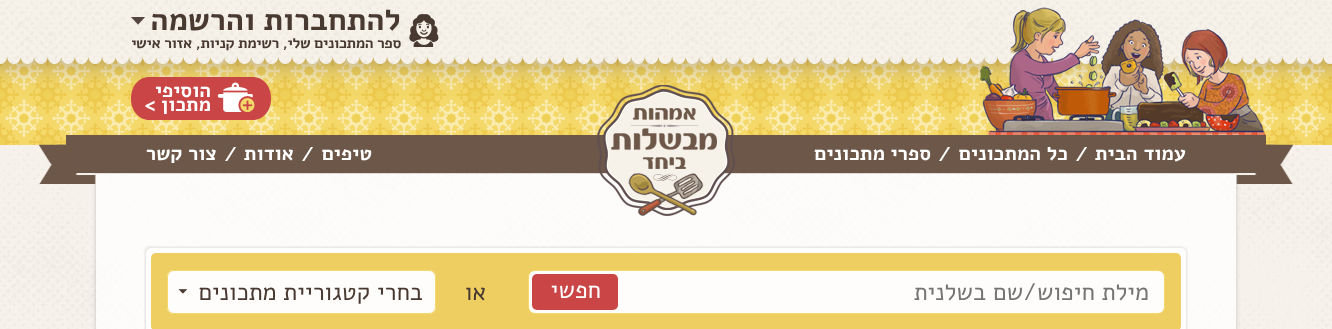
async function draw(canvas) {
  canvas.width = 1332
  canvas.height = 329
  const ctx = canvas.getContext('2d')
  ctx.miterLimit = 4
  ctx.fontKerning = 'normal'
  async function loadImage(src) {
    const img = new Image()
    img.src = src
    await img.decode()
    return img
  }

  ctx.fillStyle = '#fff'
  ctx.fillRect(0, 0, 1332, 329)
  ctx.drawImage(await loadImage('image0.png'), 0, 145, 1332, 184)
  ctx.drawImage(await loadImage('image1.png'), 0, 0, 1332, 145)
  ctx.drawImage(await loadImage('image2.png'), 980, 7, 286, 128)
  ctx.drawImage(await loadImage('image3.png'), 409, 14, 30, 33)
  ctx.drawImage(await loadImage('image4.png'), 131, 17, 14, 8)
  ctx.direction = 'rtl'
  ctx.font = 'bold 31px Alef'
  ctx.fillStyle = '#493a31'
  ctx.fillText('להתחברות והרשמה', 401, 30)
  ctx.letterSpacing = '-0.35px'
  ctx.font = 'bold 15px Alef'
  ctx.fillText('ספר המתכונים שלי, רשימת קניות, אזור אישי', 401, 48)
  ctx.fillStyle = '#ca4646'
  ctx.beginPath()
  ctx.moveTo(149, 77)
  ctx.lineTo(253, 77)
  ctx.bezierCurveTo(263, 77, 271, 86, 271, 98)
  ctx.lineTo(271, 99)
  ctx.bezierCurveTo(271, 111, 263, 120, 253, 120)
  ctx.lineTo(149, 120)
  ctx.bezierCurveTo(139, 120, 131, 111, 131, 99)
  ctx.lineTo(131, 98)
  ctx.bezierCurveTo(131, 86, 139, 77, 149, 77)
  ctx.closePath()
  ctx.fill()
  ctx.drawImage(await loadImage('image5.png'), 217, 82, 38, 30)
  ctx.letterSpacing = '0px'
  ctx.font = 'bold 20px Alef'
  ctx.fillStyle = '#fff'
  ctx.fillText('הוסיפי', 211, 97)
  ctx.fillText('מתכון >', 211, 111)
  ctx.save()
  ctx.beginPath()
  ctx.moveTo(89, 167)
  ctx.lineTo(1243, 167)
  ctx.lineTo(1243, 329)
  ctx.lineTo(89, 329)
  ctx.closePath()
  ctx.moveTo(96, 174)
  ctx.lineTo(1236, 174)
  ctx.lineTo(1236, 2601)
  ctx.lineTo(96, 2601)
  ctx.closePath()
  ctx.clip('evenodd')
  ctx.fillStyle = '#00000033'
  ctx.filter = 'blur(2px)'
  ctx.beginPath()
  ctx.rect(96, 174, 1140, 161)
  ctx.fill()
  ctx.filter = 'none'
  ctx.restore()
  ctx.fillStyle = '#6d5749'
  ctx.fillRect(66, 135, 1200, 38)
  ctx.drawImage(await loadImage('image6.png'), 1236, 144, 57, 40)
  ctx.fillStyle = '#ffffffbf'
  ctx.fillRect(96, 174, 1140, 155)
  ctx.drawImage(await loadImage('image7.png'), 597, 85, 138, 131)
  ctx.drawImage(await loadImage('image8.png'), 39, 144, 57, 40)
  ctx.fillStyle = '#fff'
  ctx.fillText('עמוד הבית', 1186, 160)
  ctx.direction = 'ltr'
  ctx.fillText('/', 1075, 161)
  ctx.direction = 'rtl'
  ctx.fillText('כל המתכונים', 1068, 160)
  ctx.direction = 'ltr'
  ctx.fillText('/', 938, 161)
  ctx.direction = 'rtl'
  ctx.fillText('ספרי מתכונים', 931, 160)
  ctx.fillText('טיפים', 372, 160)
  ctx.direction = 'ltr'
  ctx.fillText('/', 301, 161)
  ctx.direction = 'rtl'
  ctx.fillText('אודות', 294, 160)
  ctx.direction = 'ltr'
  ctx.fillText('/', 224, 161)
  ctx.direction = 'rtl'
  ctx.fillText('צור קשר', 217, 160)
  ctx.drawImage(await loadImage('image9.png'), 1181, 246, 7, 7)
  ctx.drawImage(await loadImage('image10.png'), 151, 246, 1030, 7)
  ctx.drawImage(await loadImage('image11.png'), 143, 245, 8, 8)
  ctx.drawImage(await loadImage('image12.png'), 1181, 253, 7, 76)
  ctx.drawImage(await loadImage('image13.png'), 144, 253, 7, 76)
  ctx.fillStyle = '#eece61'
  ctx.beginPath()
  ctx.roundRect(151, 253, 1030, 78, 5)
  ctx.fill()
  ctx.fillStyle = '#fefdfc'
  ctx.beginPath()
  ctx.roundRect(528.5, 270.5, 636, 43, 6.5)
  ctx.fill()
  ctx.strokeStyle = '#f4d869'
  ctx.stroke()
  ctx.font = '24px Alef'
  ctx.fillStyle = '#757575'
  ctx.fillText('מילת חיפוש/שם בשלנית', 1149, 300)
  ctx.fillStyle = '#ca4646'
  ctx.beginPath()
  ctx.roundRect(532, 274, 86, 36, 5)
  ctx.fill()
  ctx.fillStyle = '#fff'
  ctx.fillText('חפשי', 601, 298)
  ctx.fillStyle = '#493a31'
  ctx.fillText('או', 486, 300)
  ctx.fillStyle = '#fefdfc'
  ctx.beginPath()
  ctx.roundRect(167, 270, 269, 44, 7)
  ctx.fill()
  ctx.drawImage(await loadImage('image14.png'), 178, 289, 10, 5)
  ctx.beginPath()
  ctx.roundRect(167.5, 270.5, 268, 43, 6.5)
  ctx.stroke()
  ctx.fillStyle = '#493a31'
  ctx.fillText('בחרי קטגוריית מתכונים', 423, 300)
}

draw(document.querySelector('canvas'))
